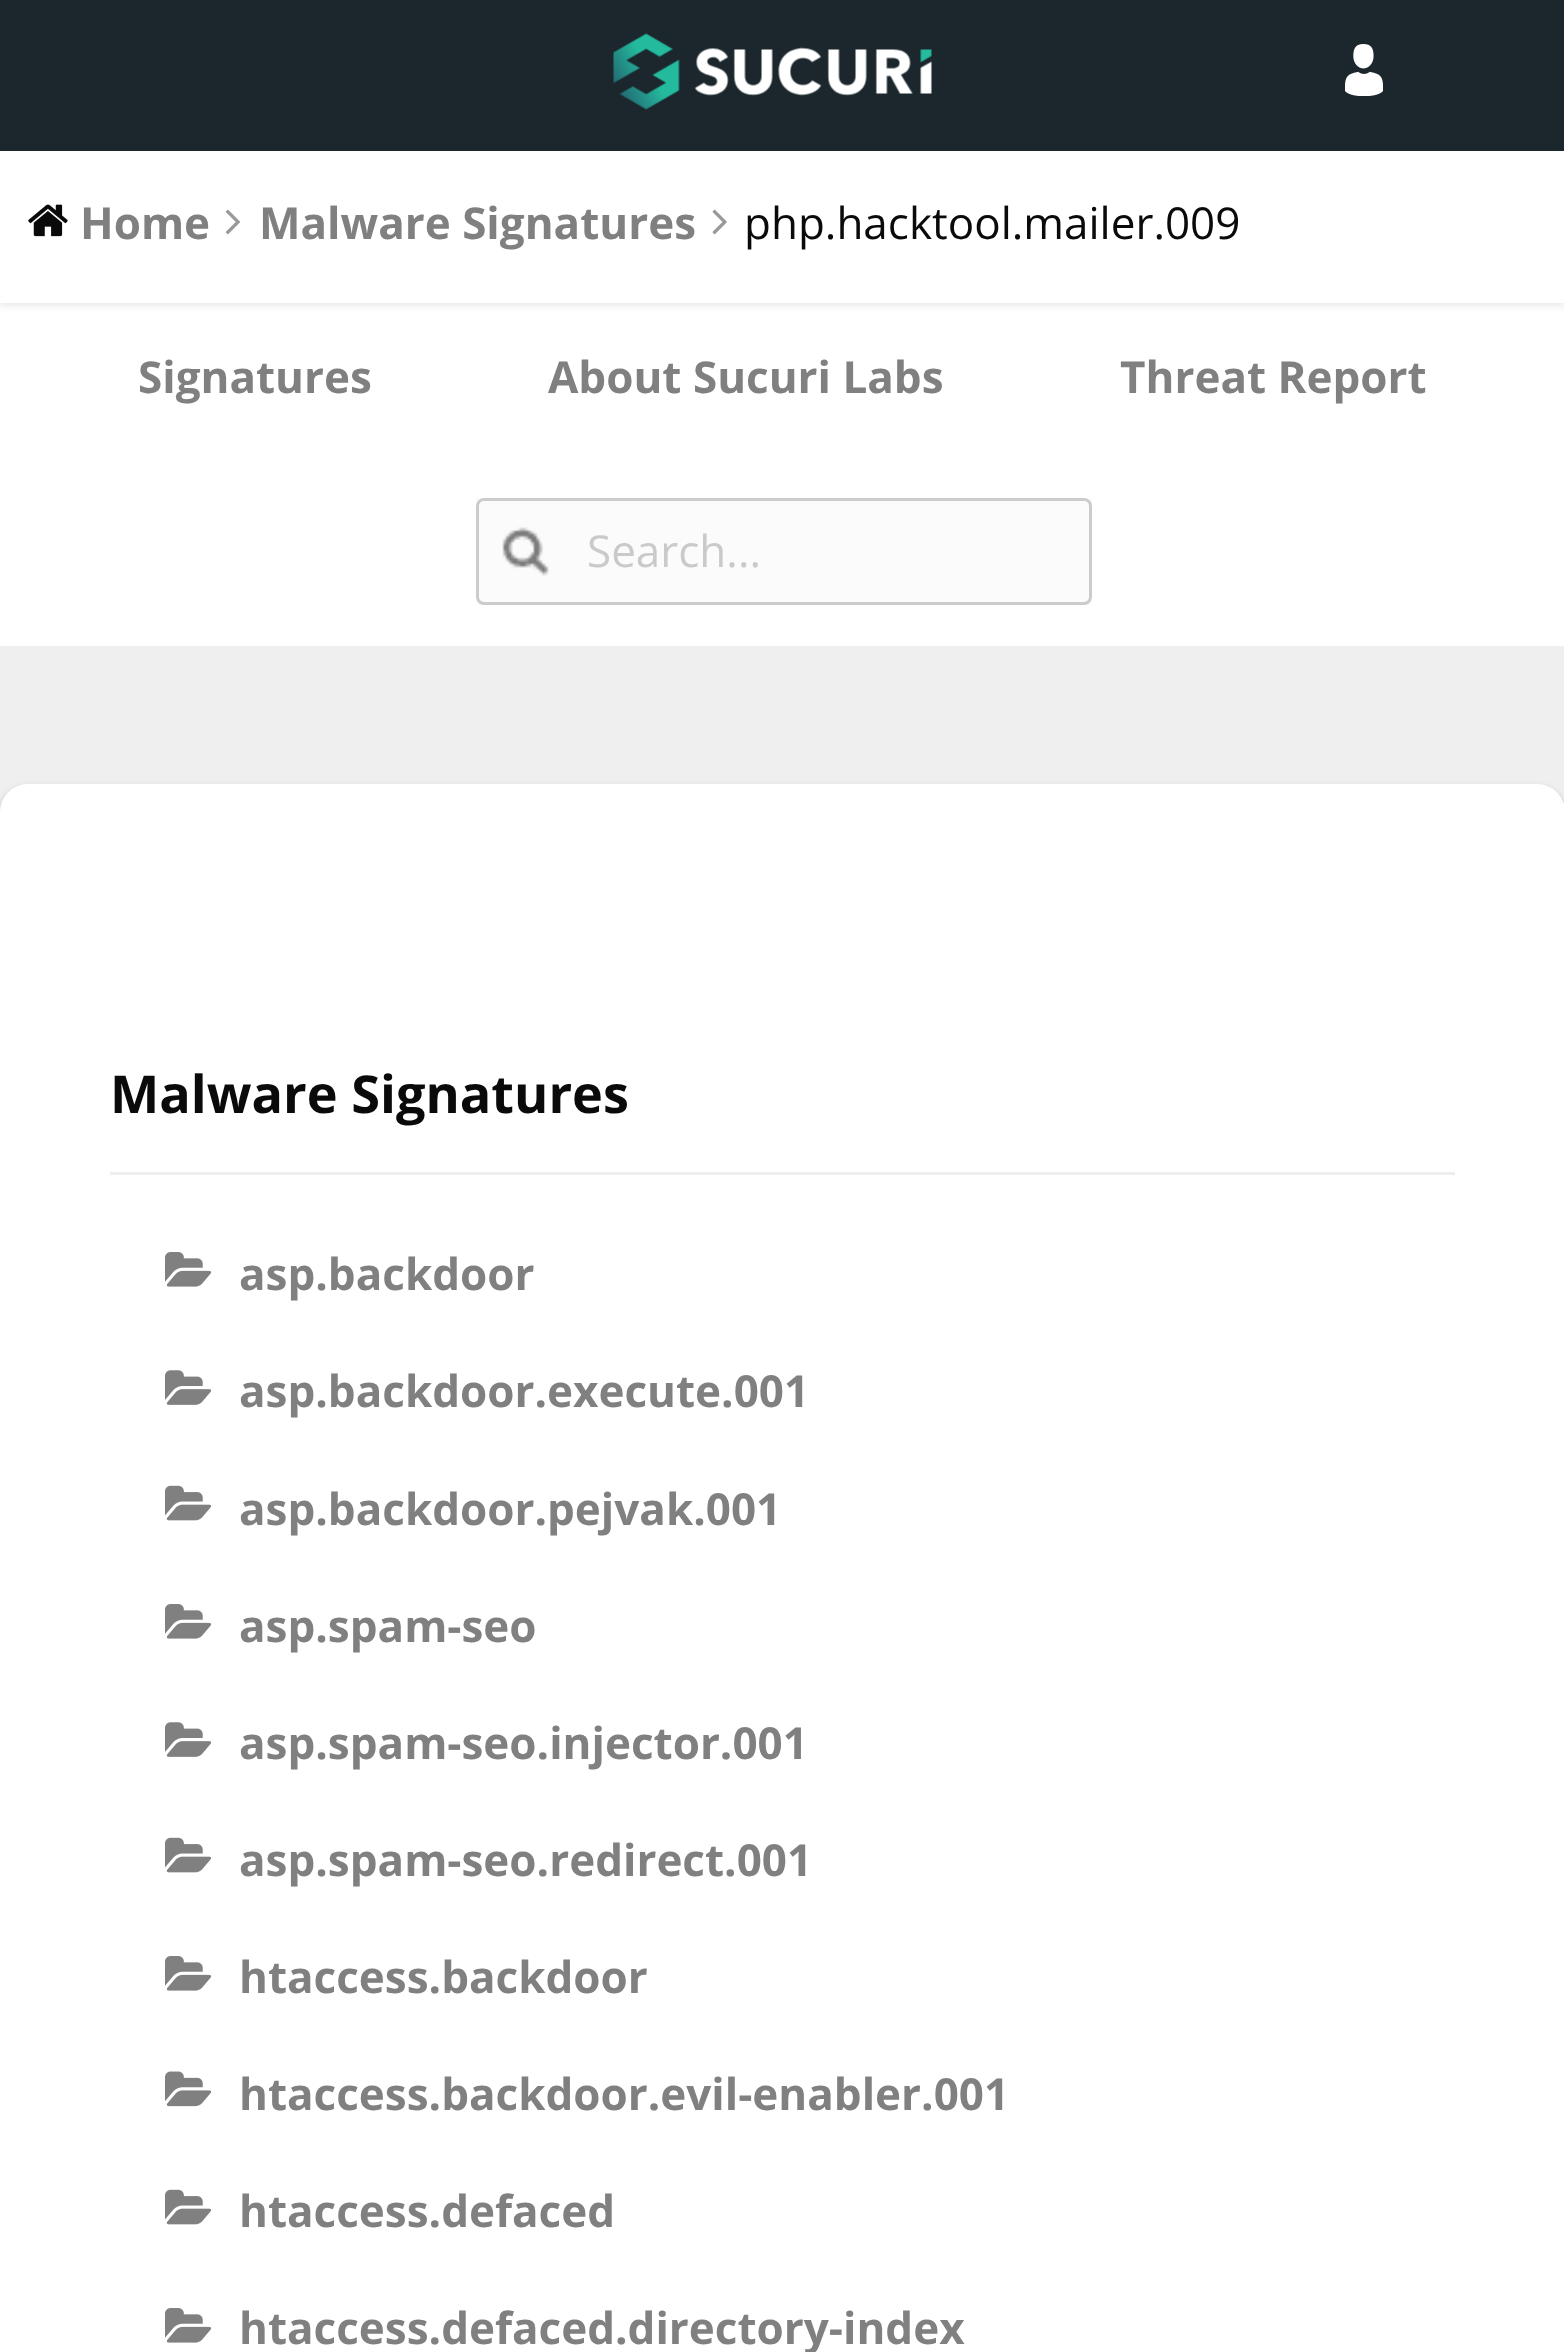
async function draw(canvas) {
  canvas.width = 1564
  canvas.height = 2352
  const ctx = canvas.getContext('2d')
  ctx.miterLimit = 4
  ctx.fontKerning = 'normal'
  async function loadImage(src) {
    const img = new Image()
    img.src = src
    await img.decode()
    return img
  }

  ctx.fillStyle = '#efefef'
  ctx.fillRect(0, 0, 1564, 2352)
  ctx.fillStyle = '#fff'
  ctx.fillRect(0, 303, 1564, 343)
  ctx.fillStyle = '#e4e4e4'
  ctx.filter = 'blur(4px)'
  ctx.beginPath()
  ctx.rect(0, 154, 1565, 151)
  ctx.fill()
  ctx.filter = 'none'
  ctx.fillStyle = '#1b272d'
  ctx.fillRect(0, 0, 1564, 151)
  ctx.drawImage(await loadImage('image0.png'), 613, 33, 319, 77)
  ctx.drawImage(await loadImage('image1.png'), 1345, 44, 38, 52)
  ctx.fillStyle = '#00000040'
  ctx.filter = 'blur(4px)'
  ctx.beginPath()
  ctx.roundRect(0, 789, 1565, 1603, 28)
  ctx.fill()
  ctx.filter = 'none'
  ctx.fillStyle = '#fff'
  ctx.beginPath()
  ctx.roundRect(0, 784, 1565, 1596, 28)
  ctx.fill()
  ctx.fillRect(0, 151, 1564, 152)
  ctx.drawImage(await loadImage('image2.png'), 28, 204, 40, 33)
  ctx.font = 'bold 44px Open Sans'
  ctx.fillStyle = '#808080'
  ctx.fillText('Home', 80, 239)
  ctx.drawImage(await loadImage('image3.png'), 225, 209, 15, 26)
  ctx.fillText('Malware Signatures', 259, 239)
  ctx.drawImage(await loadImage('image4.png'), 712, 209, 15, 26)
  ctx.font = '44px Open Sans'
  ctx.fillStyle = '#0a0a0a'
  ctx.fillText('php.hacktool.mailer.009', 744, 239)
  ctx.fillStyle = '#eee'
  ctx.fillRect(110, 1172, 1345, 3)
  ctx.font = 'bold 52.25px Open Sans'
  ctx.fillStyle = '#0a0a0a'
  ctx.fillText('Malware Signatures', 110, 1113)
  ctx.drawImage(await loadImage('image5.png'), 165, 1252, 47, 35)
  ctx.font = 'bold 44px Open Sans'
  ctx.fillStyle = '#808080'
  ctx.fillText('asp.backdoor', 239, 1290)
  ctx.drawImage(await loadImage('image6.png'), 165, 1370, 47, 35)
  ctx.fillText('asp.backdoor.execute.001', 239, 1407)
  ctx.drawImage(await loadImage('image7.png'), 165, 1485, 47, 36)
  ctx.fillText('asp.backdoor.pejvak.001', 239, 1525)
  ctx.drawImage(await loadImage('image5.png'), 165, 1604, 47, 35)
  ctx.fillText('asp.spam-seo', 239, 1642)
  ctx.drawImage(await loadImage('image6.png'), 165, 1722, 47, 35)
  ctx.fillText('asp.spam-seo.injector.001', 239, 1759)
  ctx.drawImage(await loadImage('image7.png'), 165, 1837, 47, 36)
  ctx.fillText('asp.spam-seo.redirect.001', 239, 1876)
  ctx.drawImage(await loadImage('image5.png'), 165, 1956, 47, 35)
  ctx.fillText('htaccess.backdoor', 239, 1993)
  ctx.drawImage(await loadImage('image8.png'), 165, 2071, 47, 36)
  ctx.fillText('htaccess.backdoor.evil-enabler.001', 239, 2110)
  ctx.drawImage(await loadImage('image7.png'), 165, 2189, 47, 36)
  ctx.fillText('htaccess.defaced', 239, 2227)
  ctx.drawImage(await loadImage('image5.png'), 165, 2308, 47, 35)
  ctx.fillText('htaccess.defaced.directory-index', 239, 2344)
  ctx.fillText('Signatures', 138, 393)
  ctx.fillText('About Sucuri Labs', 548, 393)
  ctx.fillText('Threat Report', 1120, 393)
  ctx.fillStyle = '#fbfbfb'
  ctx.fillRect(476, 498, 616, 107)
  ctx.drawImage(await loadImage('image9.png'), 502, 527, 47, 49)
  ctx.beginPath()
  ctx.roundRect(477.5, 499.5, 613, 104, 6.5)
  ctx.strokeStyle = '#ccc'
  ctx.lineWidth = 3
  ctx.stroke()
  ctx.font = '44px Open Sans'
  ctx.fillStyle = '#cacaca'
  ctx.fillText('Search...', 587, 567)
}

draw(document.querySelector('canvas'))
